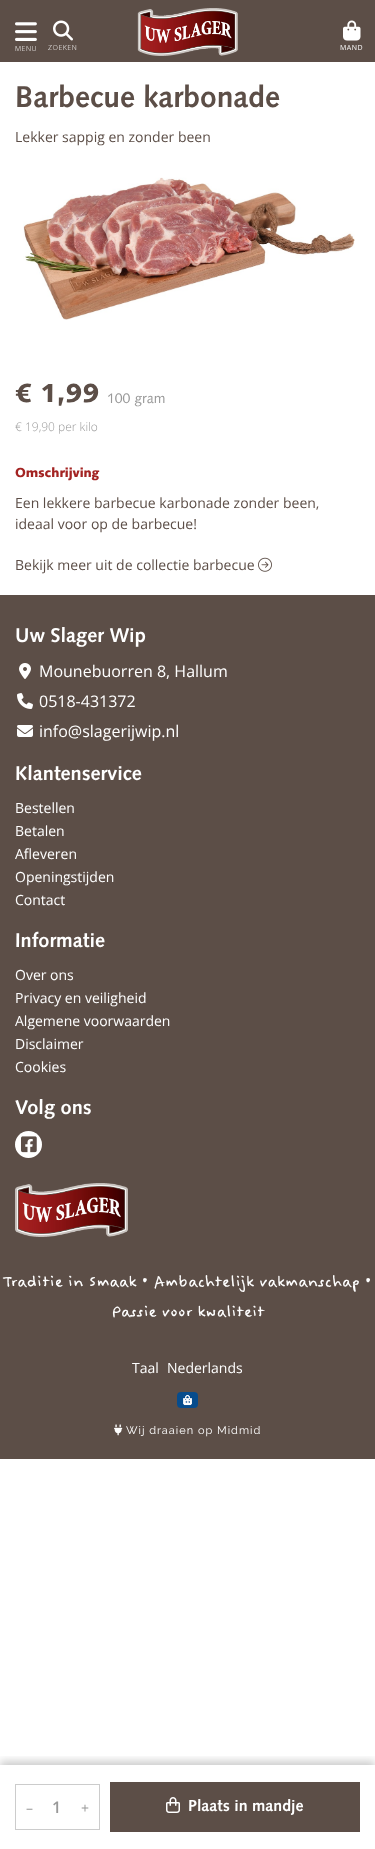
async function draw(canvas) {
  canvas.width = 375
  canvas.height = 1849
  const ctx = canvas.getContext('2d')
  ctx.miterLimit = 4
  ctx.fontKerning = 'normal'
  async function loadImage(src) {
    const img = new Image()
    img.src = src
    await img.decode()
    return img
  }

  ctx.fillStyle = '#fff'
  ctx.fillRect(0, 0, 375, 1849)
  ctx.fillStyle = '#5c4e47'
  ctx.fillRect(0, 0, 375, 62)
  ctx.drawImage(await loadImage('image0.png'), 15, 22, 22, 19)
  ctx.letterSpacing = '0.5px'
  ctx.font = '300 7px Open Sans'
  ctx.fillStyle = '#fff'
  ctx.fillText('MENU', 15, 51)
  ctx.drawImage(await loadImage('image1.png'), 53, 20, 20, 21)
  ctx.fillText('ZOEKEN', 48, 50)
  ctx.drawImage(await loadImage('image2.png'), 137, 8, 101, 48)
  ctx.drawImage(await loadImage('image3.png'), 343, 20, 18, 21)
  ctx.font = '7px Open Sans'
  ctx.fillText('MAND', 340, 50)
  ctx.letterSpacing = '0px'
  ctx.font = 'bold 30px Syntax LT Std'
  ctx.fillStyle = '#5c4e47'
  ctx.fillText('Barbecue karbonade', 15, 107)
  ctx.font = '14px Open Sans'
  ctx.fillText('Lekker sappig en zonder been', 15, 142)
  ctx.font = '900 26px Syntax LT Std'
  ctx.fillText('€ 1,99', 15, 402)
  ctx.font = '14px Syntax LT Std'
  ctx.fillStyle = '#999'
  ctx.fillText('100 gram', 107, 403)
  ctx.font = '300 12px Open Sans'
  ctx.fillText('€ 19,90 per kilo', 15, 431)
  ctx.save()
  ctx.beginPath()
  ctx.rect(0, 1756, 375, 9)
  ctx.clip()
  ctx.fillStyle = '#00000033'
  ctx.filter = 'blur(4px)'
  ctx.beginPath()
  ctx.rect(0, 1761, 375, 84)
  ctx.fill()
  ctx.filter = 'none'
  ctx.restore()
  ctx.strokeStyle = '#ccc'
  ctx.strokeRect(15.5, 1784.5, 84, 45)
  ctx.font = '14px Open Sans'
  ctx.fillText('–', 26, 1813)
  ctx.font = '600 16px Open Sans'
  ctx.fillText('1', 52, 1813)
  ctx.font = '14px Open Sans'
  ctx.fillText('+', 81, 1813)
  ctx.fillStyle = '#5c4e47'
  ctx.fillRect(110, 1782, 250, 50)
  ctx.drawImage(await loadImage('image4.png'), 166, 1797, 14, 16)
  ctx.font = 'bold 16px Syntax LT Std'
  ctx.fillStyle = '#fff'
  ctx.fillText('Plaats in mandje', 188, 1811)
  ctx.font = '14px Open Sans'
  ctx.fillStyle = '#5c4e47'
  ctx.fillText('Bekijk meer uit de collectie barbecue', 15, 570)
  ctx.drawImage(await loadImage('image5.png'), 258, 557, 14, 15)
  ctx.drawImage(await loadImage('image6.png'), 23, 177, 332, 143)
  ctx.font = '900 13px Syntax LT Std'
  ctx.fillStyle = '#a32322'
  ctx.fillText('Omschrijving', 15, 477)
  ctx.font = '14px Open Sans'
  ctx.fillStyle = '#5c4e47'
  ctx.fillText('Een lekkere barbecue karbonade zonder been,', 15, 508)
  ctx.fillText('ideaal voor op de barbecue!', 15, 529)
  ctx.fillRect(0, 595, 375, 864)
  ctx.font = 'bold 20px Syntax LT Std'
  ctx.fillStyle = '#fff'
  ctx.fillText('Uw Slager Wip', 15, 642)
  ctx.drawImage(await loadImage('image7.png'), 19, 663, 12, 16)
  ctx.font = '16px Open Sans'
  ctx.fillText('Mounebuorren 8, Hallum', 39, 677)
  ctx.drawImage(await loadImage('image8.png'), 17, 693, 16, 16)
  ctx.fillText('0518-431372', 39, 707)
  ctx.drawImage(await loadImage('image9.png'), 17, 725, 16, 12)
  ctx.fillText('info@slagerijwip.nl', 39, 737)
  ctx.font = 'bold 20px Syntax LT Std'
  ctx.fillText('Klantenservice', 15, 780)
  ctx.font = '14px Open Sans'
  ctx.fillText('Bestellen', 15, 813)
  ctx.fillText('Betalen', 15, 836)
  ctx.fillText('Afleveren', 15, 859)
  ctx.fillText('Openingstijden', 15, 882)
  ctx.fillText('Contact', 15, 905)
  ctx.font = 'bold 20px Syntax LT Std'
  ctx.fillText('Informatie', 15, 947)
  ctx.font = '14px Open Sans'
  ctx.fillText('Over ons', 15, 980)
  ctx.fillText('Privacy en veiligheid', 15, 1003)
  ctx.fillText('Algemene voorwaarden', 15, 1026)
  ctx.fillText('Disclaimer', 15, 1049)
  ctx.fillText('Cookies', 15, 1072)
  ctx.font = 'bold 20px Syntax LT Std'
  ctx.fillText('Volg ons', 15, 1114)
  ctx.beginPath()
  ctx.arc(28.5, 1144.5, 13.5, 0, 2 * Math.PI)
  ctx.fill()
  ctx.drawImage(await loadImage('image10.png'), 21, 1136, 16, 17)
  ctx.drawImage(await loadImage('image11.png'), 15, 1183, 113, 54)
  ctx.font = '20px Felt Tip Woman'
  ctx.fillText('Traditie in Smaak • Ambachtelijk vakmanschap •', 3, 1286)
  ctx.fillText('Passie voor kwaliteit', 111, 1316)
  ctx.font = '14px Open Sans'
  ctx.fillText('Taal', 132, 1373)
  ctx.fillText('Nederlands', 167, 1373)
  ctx.drawImage(await loadImage('image12.png'), 177, 1392, 21, 16)
  ctx.drawImage(await loadImage('image13.png'), 114, 1424, 9, 12)
  ctx.letterSpacing = '1px'
  ctx.font = '11px Raleway'
  ctx.fillText('Wij draaien op Midmid', 126, 1434)
}

draw(document.querySelector('canvas'))
